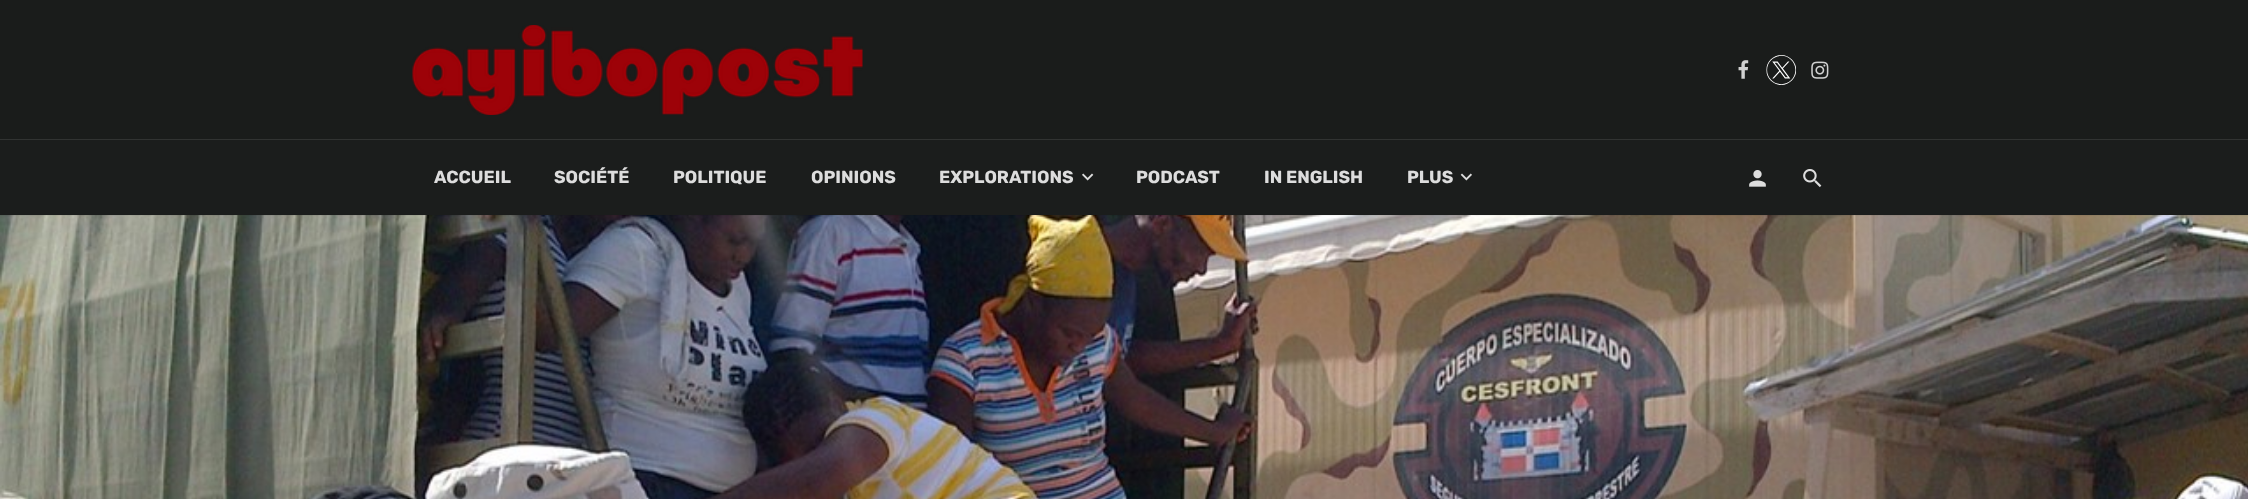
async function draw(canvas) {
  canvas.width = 2248
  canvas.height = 499
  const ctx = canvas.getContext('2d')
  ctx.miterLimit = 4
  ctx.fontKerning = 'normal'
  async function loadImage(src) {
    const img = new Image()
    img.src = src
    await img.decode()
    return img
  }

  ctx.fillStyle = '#fff'
  ctx.fillRect(0, 0, 2248, 499)
  ctx.drawImage(await loadImage('image8.png'), 0, 215, 2248, 284)
  ctx.fillStyle = '#0000000a'
  ctx.beginPath()
  ctx.moveTo(0, 215)
  ctx.lineTo(0, 216)
  ctx.lineTo(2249, 216)
  ctx.lineTo(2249, 1)
  ctx.lineTo(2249, 215)
  ctx.closePath()
  ctx.fill()
  ctx.fillStyle = '#1a1c1b'
  ctx.fillRect(0, 0, 2248, 139)
  ctx.drawImage(await loadImage('image0.png'), 412, 25, 451, 90)
  ctx.drawImage(await loadImage('image1.png'), 1738, 60, 11, 19)
  ctx.drawImage(await loadImage('image2.png'), 1766, 55, 30, 30)
  ctx.drawImage(await loadImage('image3.png'), 1811, 61, 18, 18)
  ctx.fillStyle = '#313332'
  ctx.beginPath()
  ctx.moveTo(0, 139)
  ctx.lineTo(0, 140)
  ctx.lineTo(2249, 140)
  ctx.lineTo(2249, 214)
  ctx.lineTo(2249, 139)
  ctx.closePath()
  ctx.fill()
  ctx.fillStyle = '#1b1d1c'
  ctx.fillRect(0, 140, 2248, 75)
  ctx.font = 'bold 17.5px Rubik'
  ctx.fillStyle = '#ddd'
  ctx.fillText('ACCUEIL', 434, 183)
  ctx.fillText('SOCIÉTÉ', 554, 183)
  ctx.fillText('POLITIQUE', 673, 183)
  ctx.fillText('OPINIONS', 811, 183)
  ctx.fillText('EXPLORATIONS', 939, 183)
  ctx.drawImage(await loadImage('image4.png'), 1082, 173, 12, 8)
  ctx.fillText('PODCAST', 1136, 183)
  ctx.fillText('IN ENGLISH', 1264, 183)
  ctx.fillText('PLUS', 1407, 183)
  ctx.drawImage(await loadImage('image5.png'), 1460, 173, 12, 8)
  ctx.drawImage(await loadImage('image6.png'), 1749, 170, 17, 17)
  ctx.drawImage(await loadImage('image7.png'), 1803, 169, 19, 19)
}

draw(document.querySelector('canvas'))
